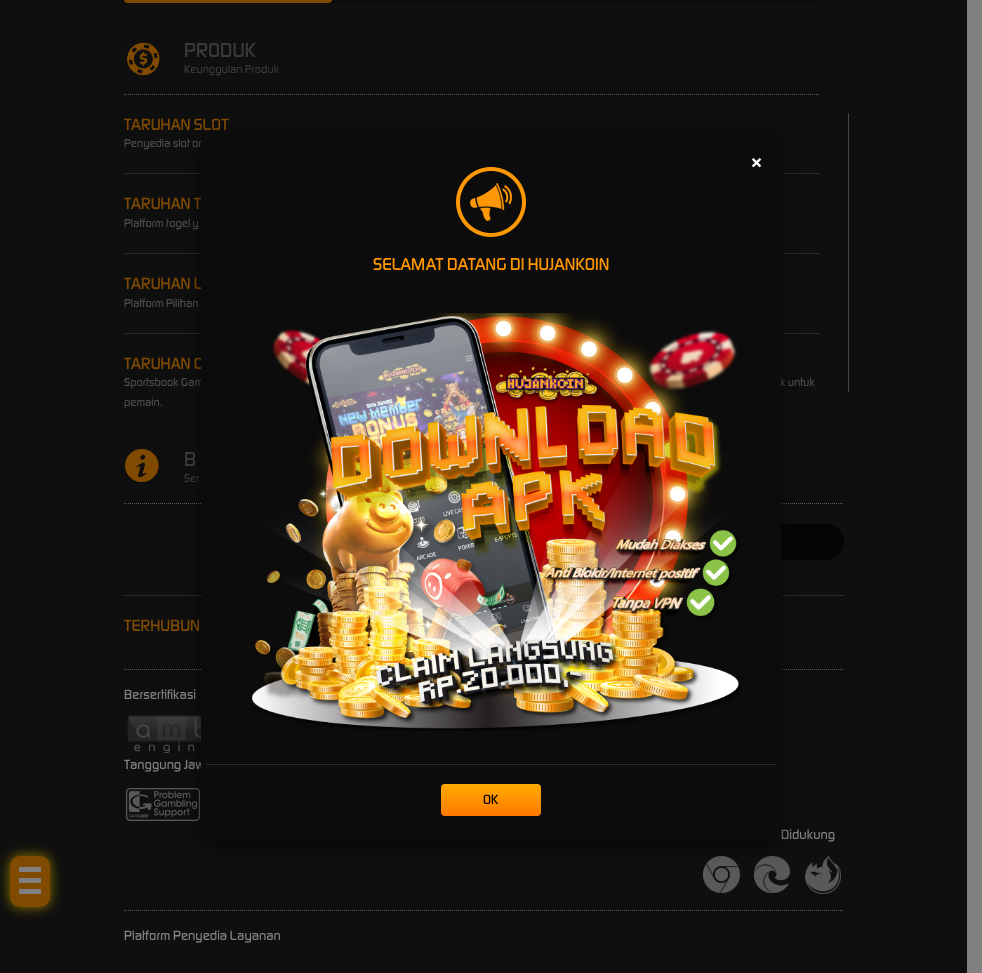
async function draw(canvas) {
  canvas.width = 982
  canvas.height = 973
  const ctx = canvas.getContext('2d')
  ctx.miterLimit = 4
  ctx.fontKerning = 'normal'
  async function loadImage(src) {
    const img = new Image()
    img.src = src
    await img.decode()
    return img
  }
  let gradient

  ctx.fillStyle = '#808080'
  ctx.fillRect(0, 0, 982, 973)
  ctx.fillStyle = '#0f0f0f'
  ctx.fillRect(0, 0, 967, 973)
  ctx.fillStyle = '#0c0c0c'
  ctx.beginPath()
  ctx.roundRect(124, -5, 695, 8, 5)
  ctx.fill()
  ctx.fillStyle = '#804b00'
  ctx.beginPath()
  ctx.roundRect(124, -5, 208, 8, 5)
  ctx.fill()
  ctx.beginPath()
  ctx.moveTo(124, 94.5)
  ctx.lineTo(819, 94.5)
  ctx.strokeStyle = '#5b5b5b'
  ctx.setLineDash([1, 1])
  ctx.stroke()
  ctx.drawImage(await loadImage('image0.png'), 127, 42, 33, 34)
  ctx.font = '500 21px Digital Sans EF'
  ctx.fillStyle = '#3a3a3a'
  ctx.fillText('PRODUK', 184, 57)
  ctx.font = '500 12px Digital Sans EF'
  ctx.fillText('Keunggulan Produk', 184, 73)
  ctx.font = '500 17px Digital Sans EF'
  ctx.fillStyle = '#804b00'
  ctx.fillText('TARUHAN SLOT', 124, 130)
  ctx.font = '500 12px Digital Sans EF'
  ctx.fillStyle = '#4d4d4d'
  ctx.fillText('Penyedia slot on', 124, 147)
  ctx.beginPath()
  ctx.moveTo(124, 173.5)
  ctx.lineTo(819, 173.5)
  ctx.strokeStyle = '#434343'
  ctx.stroke()
  ctx.font = '500 17px Digital Sans EF'
  ctx.fillStyle = '#804b00'
  ctx.fillText('TARUHAN T', 124, 209)
  ctx.font = '500 12px Digital Sans EF'
  ctx.fillStyle = '#4d4d4d'
  ctx.fillText('Platform togel y', 124, 227)
  ctx.beginPath()
  ctx.moveTo(124, 253.5)
  ctx.lineTo(819, 253.5)
  ctx.stroke()
  ctx.font = '500 17px Digital Sans EF'
  ctx.fillStyle = '#804b00'
  ctx.fillText('TARUHAN L', 124, 289)
  ctx.font = '500 12px Digital Sans EF'
  ctx.fillStyle = '#4d4d4d'
  ctx.fillText('Platform Pilihan', 124, 307)
  ctx.beginPath()
  ctx.moveTo(124, 333.5)
  ctx.lineTo(819, 333.5)
  ctx.stroke()
  ctx.font = '500 17px Digital Sans EF'
  ctx.fillStyle = '#804b00'
  ctx.fillText('TARUHAN O', 124, 369)
  ctx.font = '500 12px Digital Sans EF'
  ctx.fillStyle = '#4d4d4d'
  ctx.fillText('Sportsbook Gam', 124, 386)
  ctx.fillText('k untuk', 780, 386)
  ctx.fillText('pemain.', 124, 406)
  ctx.fillStyle = '#434343'
  ctx.beginPath()
  ctx.roundRect(848, 113, 1, 279, 0.5)
  ctx.fill()
  ctx.beginPath()
  ctx.moveTo(124, 503.5)
  ctx.lineTo(844, 503.5)
  ctx.strokeStyle = '#5b5b5b'
  ctx.stroke()
  ctx.drawImage(await loadImage('image1.png'), 125, 449, 34, 33)
  ctx.font = '500 21px Digital Sans EF'
  ctx.fillStyle = '#3a3a3a'
  ctx.fillText('B', 184, 466)
  ctx.font = '500 12px Digital Sans EF'
  ctx.fillText('Ser', 184, 482)
  ctx.fillStyle = '#050505'
  ctx.beginPath()
  ctx.roundRect(484, 524, 360, 36, 18)
  ctx.fill()
  ctx.beginPath()
  ctx.moveTo(124, 595.5)
  ctx.lineTo(844, 595.5)
  ctx.strokeStyle = '#434343'
  ctx.stroke()
  ctx.font = '500 17px Digital Sans EF'
  ctx.fillStyle = '#804b00'
  ctx.fillText('TERHUBUN', 124, 631)
  ctx.beginPath()
  ctx.moveTo(124, 669.5)
  ctx.lineTo(844, 669.5)
  ctx.strokeStyle = '#5b5b5b'
  ctx.stroke()
  ctx.font = '500 14px Digital Sans EF'
  ctx.fillStyle = '#808080'
  ctx.fillText('Bersertifikasi', 124, 699)
  ctx.drawImage(await loadImage('image2.png'), 127, 715, 74, 38)
  ctx.fillText('Tanggung Jaw', 124, 769)
  ctx.drawImage(await loadImage('image3.png'), 126, 788, 74, 33)
  ctx.fillText('Didukung', 781, 839)
  ctx.drawImage(await loadImage('image4.png'), 703, 856, 37, 37)
  ctx.drawImage(await loadImage('image5.png'), 754, 856, 36, 37)
  ctx.drawImage(await loadImage('image6.png'), 805, 856, 36, 38)
  ctx.beginPath()
  ctx.moveTo(124, 910.5)
  ctx.lineTo(844, 910.5)
  ctx.stroke()
  ctx.fillText('Platform Penyedia Layanan', 124, 940)
  ctx.fillStyle = '#00000080'
  ctx.filter = 'blur(7.5px)'
  ctx.beginPath()
  ctx.roundRect(201, 137, 580, 709, 10)
  ctx.fill()
  ctx.filter = 'none'
  ctx.fillStyle = '#0c0c0c'
  ctx.beginPath()
  ctx.roundRect(201, 132, 580, 709, 10)
  ctx.fill()
  ctx.font = 'bold 21px Digital Sans EF'
  ctx.fillStyle = '#fff'
  ctx.fillText('×', 751, 170)
  ctx.drawImage(await loadImage('image7.png'), 456, 167, 70, 70)
  ctx.font = '500 18px Digital Sans EF'
  ctx.fillStyle = '#ff9600'
  ctx.fillText('SELAMAT DATANG DI HUJANKOIN', 373, 270)
  ctx.drawImage(await loadImage('image8.png'), 252, 313, 489, 418)
  ctx.fillStyle = '#2b2b2b'
  ctx.fillRect(206, 764, 570, 1)
  gradient = ctx.createLinearGradient(491, 784, 491, 816)
  gradient.addColorStop(0, '#ffab00')
  gradient.addColorStop(1, '#ff7800')
  ctx.fillStyle = gradient
  ctx.beginPath()
  ctx.roundRect(441, 784, 100, 32, 4)
  ctx.fill()
  ctx.font = '500 14px Digital Sans EF'
  ctx.fillStyle = '#000'
  ctx.fillText('OK', 483, 804)
  ctx.fillStyle = '#7d6b01'
  ctx.filter = 'blur(6px)'
  ctx.beginPath()
  ctx.roundRect(9, 855, 42, 53, 11)
  ctx.fill()
  ctx.filter = 'none'
  ctx.fillStyle = '#804b00'
  ctx.beginPath()
  ctx.roundRect(10, 856, 40, 51, 10)
  ctx.fill()
  ctx.fillStyle = '#808080'
  ctx.fillRect(19, 867, 22, 5)
  ctx.fillRect(19, 878, 22, 5)
  ctx.fillRect(19, 889, 22, 5)
}

draw(document.querySelector('canvas'))
